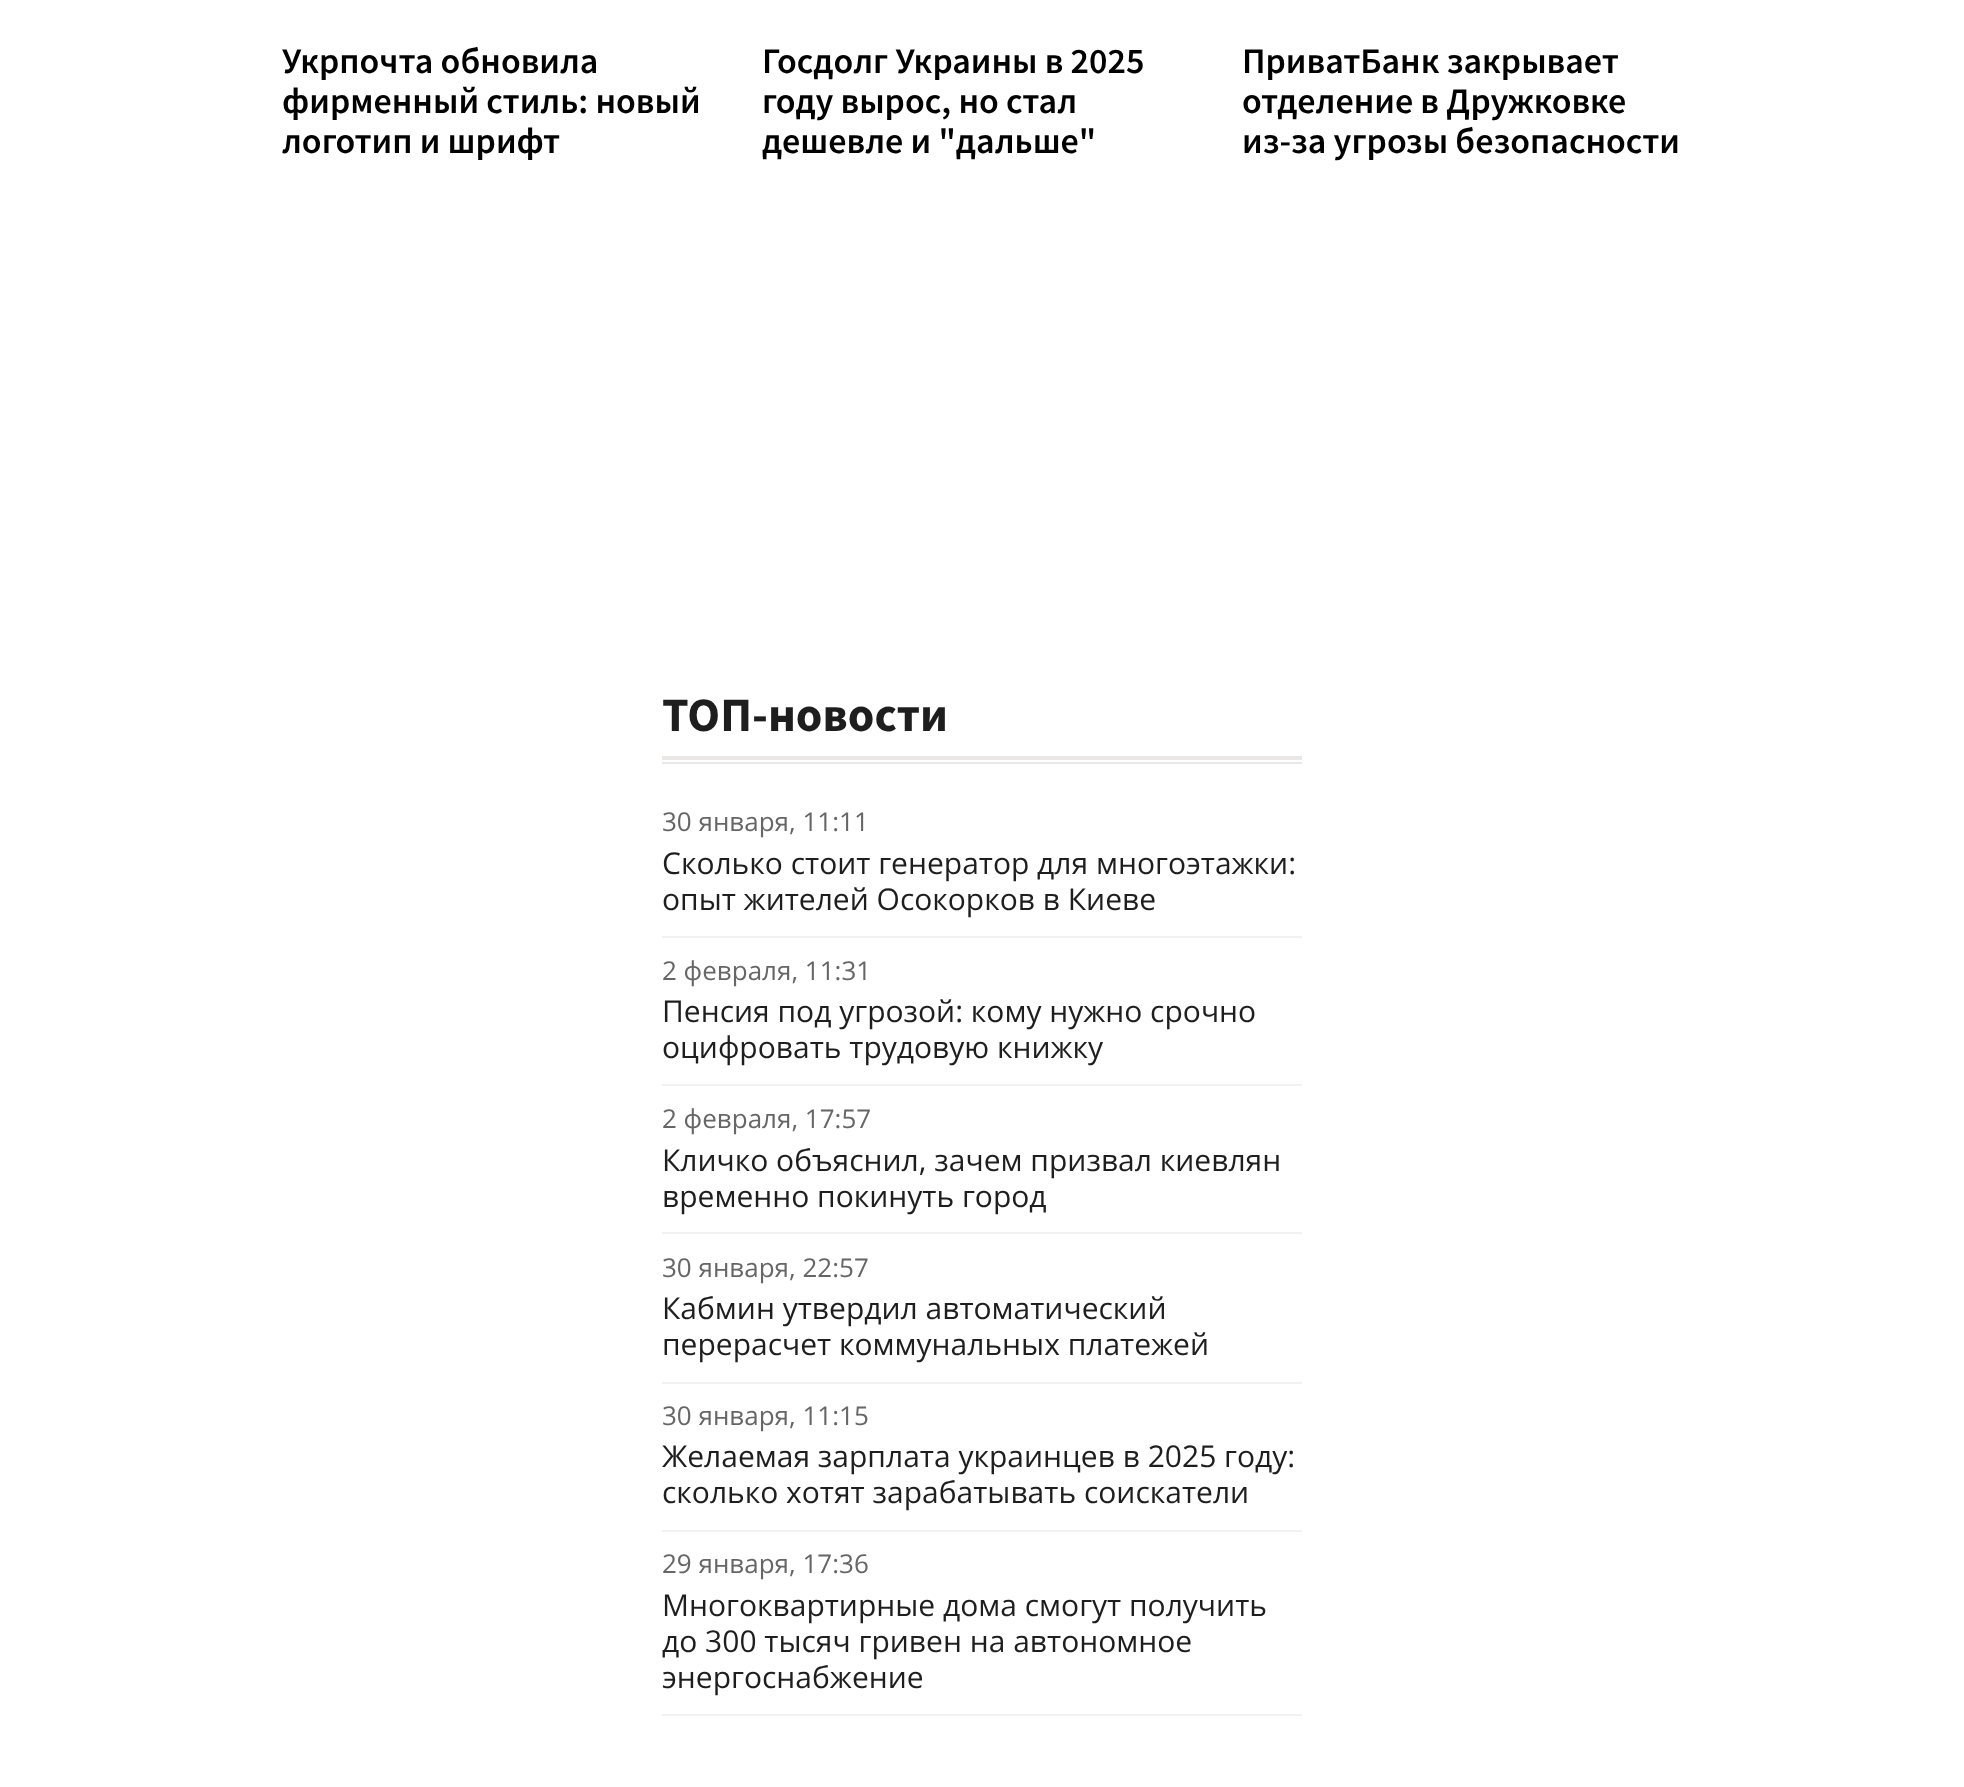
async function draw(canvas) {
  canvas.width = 1964
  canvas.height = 1787
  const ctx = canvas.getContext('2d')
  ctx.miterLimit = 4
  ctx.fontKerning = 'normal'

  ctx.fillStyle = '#fff'
  ctx.fillRect(0, 0, 1964, 1787)
  ctx.font = '600 36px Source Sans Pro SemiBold'
  ctx.fillStyle = '#000'
  ctx.fillText('Укрпочта обновила', 282, 73)
  ctx.fillText('фирменный стиль: новый', 282, 113)
  ctx.fillText('логотип и шрифт', 282, 153)
  ctx.fillText('Госдолг Украины в 2025', 762, 73)
  ctx.fillText('году вырос, но стал', 762, 113)
  ctx.fillText('дешевле и "дальше"', 762, 153)
  ctx.fillText('ПриватБанк закрывает', 1242, 73)
  ctx.fillText('отделение в Дружковке', 1242, 113)
  ctx.fillText('из-за угрозы безопасности', 1242, 153)
  ctx.fillStyle = '#eae7e7'
  ctx.fillRect(662, 762, 640, 2)
  ctx.font = 'bold 48px Source Sans Pro'
  ctx.fillStyle = '#1e1e1e'
  ctx.fillText('ТОП-новости', 662, 731)
  ctx.fillStyle = '#eae7e7'
  ctx.fillRect(662, 756, 640, 4)
  ctx.fillStyle = '#f2f2f2'
  ctx.fillRect(662, 936, 640, 2)
  ctx.font = '26px Open Sans'
  ctx.fillStyle = '#666'
  ctx.fillText('30 января, 11:11', 662, 831)
  ctx.font = '30px Open Sans'
  ctx.fillStyle = '#1e1e1e'
  ctx.fillText('Сколько стоит генератор для многоэтажки:', 662, 874)
  ctx.fillText('опыт жителей Осокорков в Киеве', 662, 910)
  ctx.fillStyle = '#f2f2f2'
  ctx.fillRect(662, 1084, 640, 2)
  ctx.font = '26px Open Sans'
  ctx.fillStyle = '#666'
  ctx.fillText('2 февраля, 11:31', 662, 980)
  ctx.font = '30px Open Sans'
  ctx.fillStyle = '#1e1e1e'
  ctx.fillText('Пенсия под угрозой: кому нужно срочно', 662, 1022)
  ctx.fillText('оцифровать трудовую книжку', 662, 1058)
  ctx.fillStyle = '#f2f2f2'
  ctx.fillRect(662, 1232, 640, 2)
  ctx.font = '26px Open Sans'
  ctx.fillStyle = '#666'
  ctx.fillText('2 февраля, 17:57', 662, 1128)
  ctx.font = '30px Open Sans'
  ctx.fillStyle = '#1e1e1e'
  ctx.fillText('Кличко объяснил, зачем призвал киевлян', 662, 1171)
  ctx.fillText('временно покинуть город', 662, 1207)
  ctx.fillStyle = '#f2f2f2'
  ctx.fillRect(662, 1382, 640, 2)
  ctx.font = '26px Open Sans'
  ctx.fillStyle = '#666'
  ctx.fillText('30 января, 22:57', 662, 1277)
  ctx.font = '30px Open Sans'
  ctx.fillStyle = '#1e1e1e'
  ctx.fillText('Кабмин утвердил автоматический', 662, 1319)
  ctx.fillText('перерасчет коммунальных платежей', 662, 1355)
  ctx.fillStyle = '#f2f2f2'
  ctx.fillRect(662, 1530, 640, 2)
  ctx.font = '26px Open Sans'
  ctx.fillStyle = '#666'
  ctx.fillText('30 января, 11:15', 662, 1425)
  ctx.font = '30px Open Sans'
  ctx.fillStyle = '#1e1e1e'
  ctx.fillText('Желаемая зарплата украинцев в 2025 году:', 662, 1467)
  ctx.fillText('сколько хотят зарабатывать соискатели', 662, 1503)
  ctx.fillStyle = '#f2f2f2'
  ctx.fillRect(662, 1714, 640, 2)
  ctx.font = '26px Open Sans'
  ctx.fillStyle = '#666'
  ctx.fillText('29 января, 17:36', 662, 1573)
  ctx.font = '30px Open Sans'
  ctx.fillStyle = '#1e1e1e'
  ctx.fillText('Многоквартирные дома смогут получить', 662, 1616)
  ctx.fillText('до 300 тысяч гривен на автономное', 662, 1652)
  ctx.fillText('энергоснабжение', 662, 1688)
}

draw(document.querySelector('canvas'))
